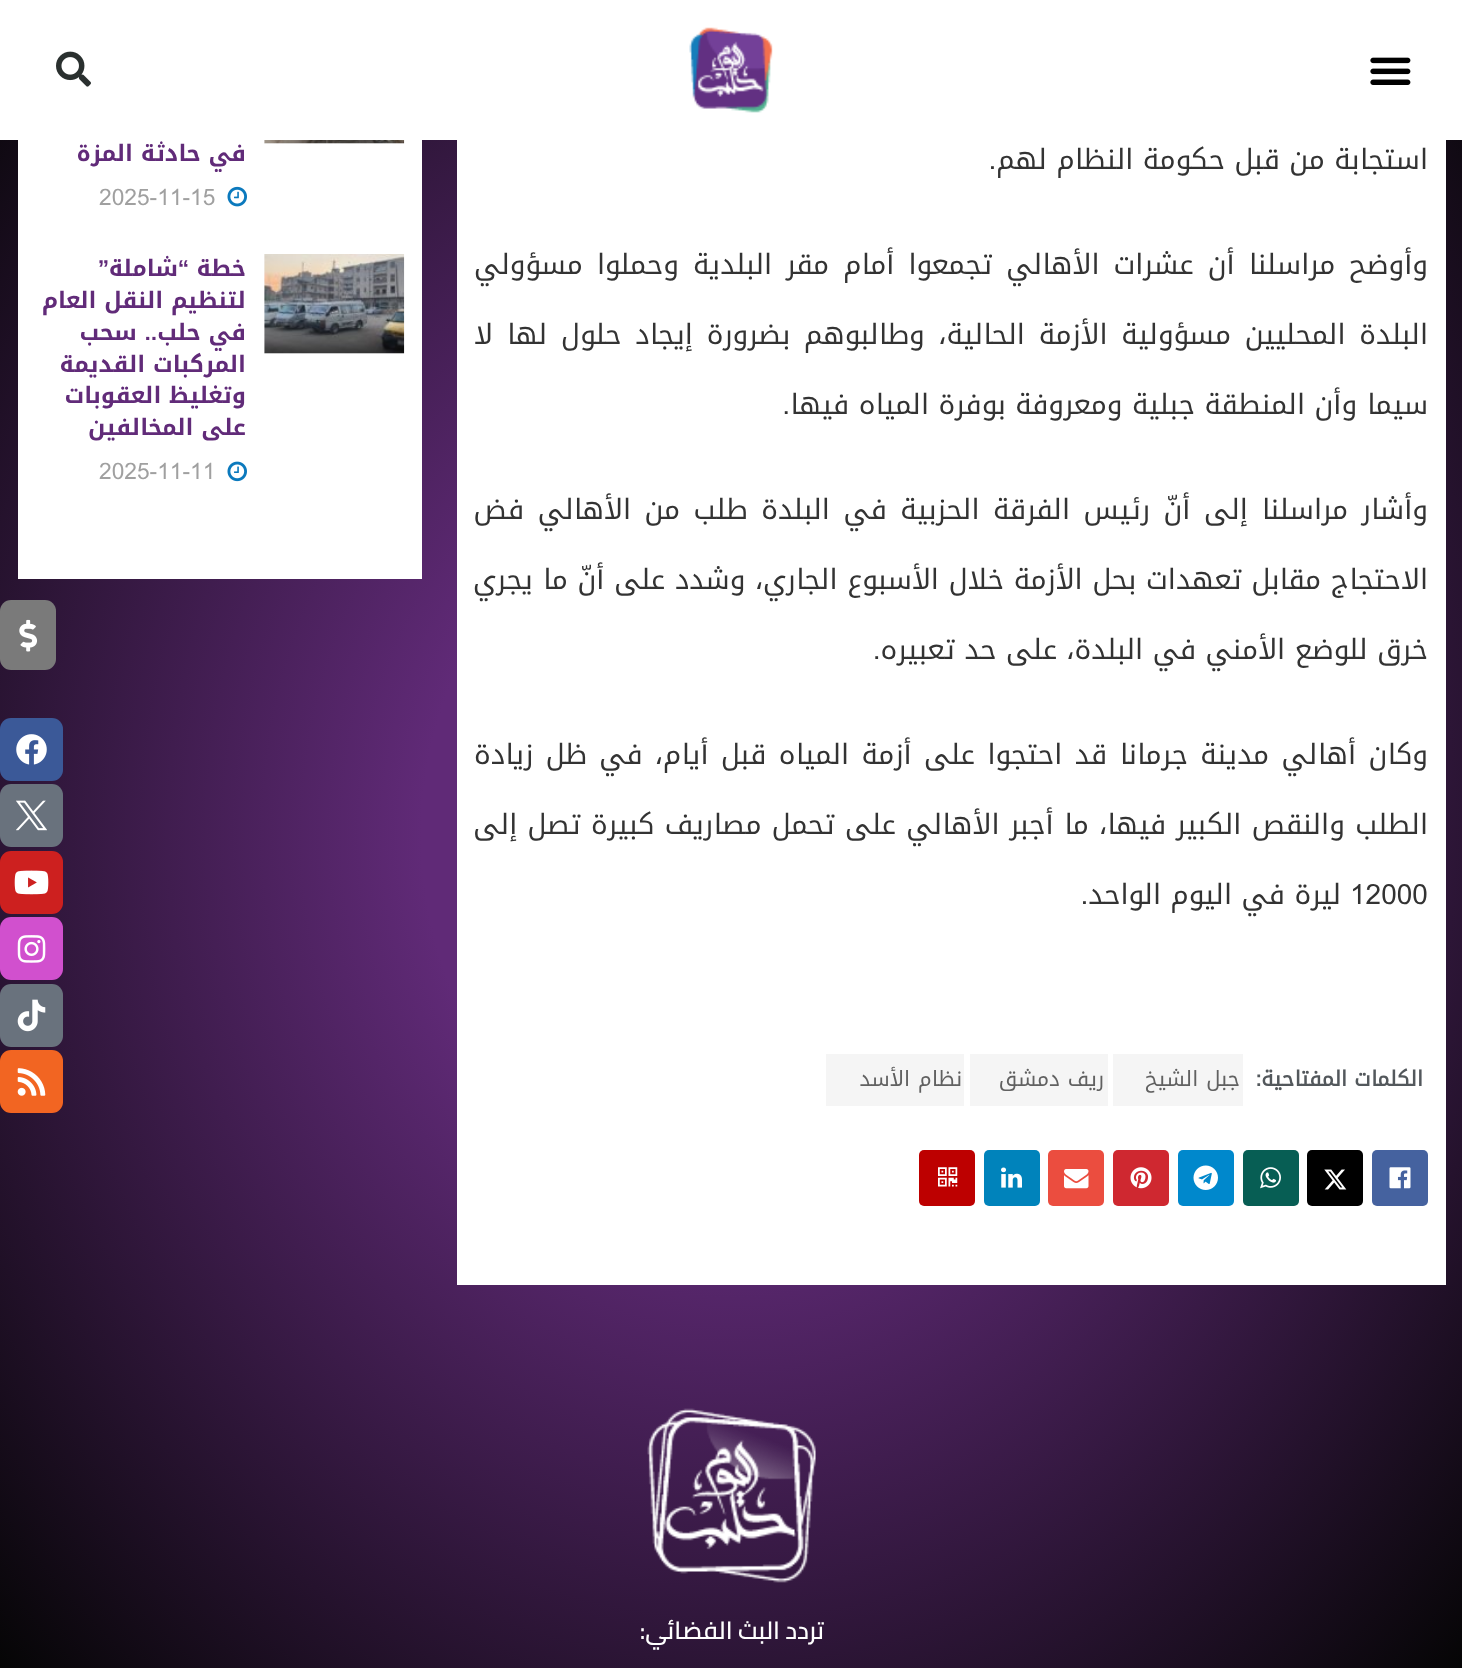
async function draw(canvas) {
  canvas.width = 1462
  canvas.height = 1668
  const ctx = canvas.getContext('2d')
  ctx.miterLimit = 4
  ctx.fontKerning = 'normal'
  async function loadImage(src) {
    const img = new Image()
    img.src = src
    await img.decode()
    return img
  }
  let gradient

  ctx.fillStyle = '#fff'
  ctx.fillRect(0, 0, 1462, 1668)
  gradient = ctx.createRadialGradient(732, 731.07, 0, 732, 731.07, 1034)
  gradient.addColorStop(0.3, '#602a77')
  gradient.addColorStop(1, '#050505')
  ctx.fillStyle = gradient
  ctx.beginPath()
  ctx.rect(0, 140, 1462, 1528)
  ctx.save()
  ctx.clip()
  ctx.scale(1, 1181 / 1034)
  ctx.fillRect(0, 0, 1462, 1461)
  ctx.restore()
  ctx.drawImage(await loadImage('image0.png'), 1370, 57, 41, 28)
  ctx.drawImage(await loadImage('image1.png'), 689, 27, 84, 86)
  ctx.drawImage(await loadImage('image2.png'), 56, 51, 35, 36)
  ctx.fillStyle = '#fff'
  ctx.fillRect(457, 140, 989, 1145)
  ctx.direction = 'rtl'
  ctx.font = '28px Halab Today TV'
  ctx.fillStyle = '#333'
  ctx.fillText('استجابة من قبل حكومة النظام لهم.', 1428, 169)
  ctx.wordSpacing = '4.5px'
  ctx.fillText('وأوضح مراسلنا أن عشرات الأهالي تجمعوا أمام مقر البلدية وحملوا مسؤولي', 1428, 274)
  ctx.wordSpacing = '4.25px'
  ctx.fillText('البلدة المحليين مسؤولية الأزمة الحالية، وطالبوهم بضرورة إيجاد حلول لها لا', 1428, 344)
  ctx.wordSpacing = '0px'
  ctx.fillText('سيما وأن المنطقة جبلية ومعروفة بوفرة المياه فيها.', 1428, 414)
  ctx.wordSpacing = '4px'
  ctx.fillText('وأشار مراسلنا إلى أنّ رئيس الفرقة الحزبية في البلدة طلب من الأهالي فض', 1428, 519)
  ctx.wordSpacing = '0.25px'
  ctx.fillText('الاحتجاج مقابل تعهدات بحل الأزمة خلال الأسبوع الجاري، وشدد على أنّ ما يجري', 1428, 589)
  ctx.wordSpacing = '0px'
  ctx.fillText('خرق للوضع الأمني في البلدة، على حد تعبيره.', 1428, 659)
  ctx.wordSpacing = '2.9px'
  ctx.fillText('وكان أهالي مدينة جرمانا قد احتجوا على أزمة المياه قبل أيام، في ظل زيادة', 1428, 764)
  ctx.wordSpacing = '0.75px'
  ctx.fillText('الطلب والنقص الكبير فيها، ما أجبر الأهالي على تحمل مصاريف كبيرة تصل إلى', 1428, 834)
  ctx.wordSpacing = '0px'
  ctx.direction = 'ltr'
  ctx.fillText('12000', 1350, 904)
  ctx.direction = 'rtl'
  ctx.fillText('ليرة في اليوم الواحد.', 1341, 904)
  ctx.font = 'bold 21px Halab Today TV'
  ctx.fillStyle = '#53585c'
  ctx.fillText('الكلمات المفتاحية:', 1423, 1086)
  ctx.fillStyle = '#f5f5f5'
  ctx.fillRect(1113, 1054, 130, 52)
  ctx.letterSpacing = '1.75px'
  ctx.wordSpacing = '-1px'
  ctx.font = '21px Halab Today TV'
  ctx.fillStyle = '#616161'
  ctx.fillText('جبل الشيخ', 1240, 1086)
  ctx.fillStyle = '#f5f5f5'
  ctx.fillRect(970, 1054, 138, 52)
  ctx.fillStyle = '#616161'
  ctx.fillText('ريف دمشق', 1104, 1086)
  ctx.fillStyle = '#f5f5f5'
  ctx.fillRect(826, 1054, 138, 52)
  ctx.fillStyle = '#616161'
  ctx.fillText('نظام الأسد', 962, 1086)
  ctx.fillStyle = '#45629f'
  ctx.beginPath()
  ctx.roundRect(1372, 1150, 56, 56, 5)
  ctx.fill()
  ctx.drawImage(await loadImage('image3.png'), 1389, 1167, 22, 22)
  ctx.fillStyle = '#000'
  ctx.beginPath()
  ctx.roundRect(1307, 1150, 56, 56, 5)
  ctx.fill()
  ctx.drawImage(await loadImage('image4.png'), 1324, 1169, 23, 21)
  ctx.fillStyle = '#075e54'
  ctx.beginPath()
  ctx.roundRect(1243, 1150, 56, 56, 5)
  ctx.fill()
  ctx.drawImage(await loadImage('image5.png'), 1260, 1167, 21, 22)
  ctx.fillStyle = '#08c'
  ctx.beginPath()
  ctx.roundRect(1178, 1150, 56, 56, 5)
  ctx.fill()
  ctx.drawImage(await loadImage('image6.png'), 1193, 1165, 25, 25)
  ctx.fillStyle = '#cf2830'
  ctx.beginPath()
  ctx.roundRect(1113, 1150, 56, 56, 5)
  ctx.fill()
  ctx.drawImage(await loadImage('image7.png'), 1130, 1167, 22, 22)
  ctx.fillStyle = '#eb4d3f'
  ctx.beginPath()
  ctx.roundRect(1048, 1150, 56, 56, 5)
  ctx.fill()
  ctx.drawImage(await loadImage('image8.png'), 1064, 1169, 25, 20)
  ctx.fillStyle = '#0083bb'
  ctx.beginPath()
  ctx.roundRect(984, 1150, 56, 56, 5)
  ctx.fill()
  ctx.drawImage(await loadImage('image9.png'), 1001, 1167, 21, 21)
  ctx.fillStyle = '#bd0000'
  ctx.beginPath()
  ctx.roundRect(919, 1150, 56, 56, 5)
  ctx.fill()
  ctx.drawImage(await loadImage('image10.png'), 938, 1167, 20, 20)
  ctx.fillStyle = '#fff'
  ctx.fillRect(18, 140, 404, 439)
  ctx.fillStyle = '#f7f7f7'
  ctx.fillRect(264, 140, 140, 4)
  ctx.drawImage(await loadImage('image11.png'), 264, 140, 141, 4)
  ctx.letterSpacing = '0px'
  ctx.wordSpacing = '0px'
  ctx.font = 'bold 22.75px "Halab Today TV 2"'
  ctx.fillStyle = '#612b79'
  ctx.fillText('في حادثة المزة', 246, 161)
  ctx.drawImage(await loadImage('image12.png'), 227, 186, 20, 21)
  ctx.direction = 'ltr'
  ctx.font = '22.75px Halab Today TV'
  ctx.fillStyle = '#a0a0a0'
  ctx.fillText('2025-11-15', 99, 205)
  ctx.fillStyle = '#f7f7f7'
  ctx.fillRect(264, 254, 140, 100)
  ctx.drawImage(await loadImage('image13.png'), 264, 254, 141, 100)
  ctx.direction = 'rtl'
  ctx.font = 'bold 22.75px "Halab Today TV 2"'
  ctx.fillStyle = '#612b79'
  ctx.fillText('خطة', 246, 276)
  ctx.font = 'bold 22.75px Liberation Sans'
  ctx.fillText('“', 189, 276)
  ctx.font = 'bold 22.75px "Halab Today TV 2"'
  ctx.fillText('شاملة', 178, 276)
  ctx.font = 'bold 22.75px Liberation Sans'
  ctx.fillText('”', 109, 276)
  ctx.font = 'bold 22.75px "Halab Today TV 2"'
  ctx.fillText('لتنظيم النقل العام', 246, 308)
  ctx.fillText('في حلب.. سحب', 246, 340)
  ctx.fillText('المركبات القديمة', 246, 372)
  ctx.fillText('وتغليظ العقوبات', 246, 403)
  ctx.fillText('على المخالفين', 246, 435)
  ctx.drawImage(await loadImage('image14.png'), 227, 461, 20, 21)
  ctx.direction = 'ltr'
  ctx.font = '22.75px Halab Today TV'
  ctx.fillStyle = '#a0a0a0'
  ctx.fillText('2025-11-11', 99, 479)
  ctx.fillStyle = '#7a7a7a'
  ctx.beginPath()
  ctx.roundRect(0, 600, 56, 70, 11)
  ctx.fill()
  ctx.drawImage(await loadImage('image15.png'), 19, 619, 19, 33)
  ctx.fillStyle = '#3b5998'
  ctx.beginPath()
  ctx.roundRect(0, 718, 63, 63, 11)
  ctx.fill()
  ctx.drawImage(await loadImage('image16.png'), 16, 734, 31, 31)
  ctx.fillStyle = '#69727d'
  ctx.beginPath()
  ctx.roundRect(0, 784, 63, 63, 11)
  ctx.fill()
  ctx.drawImage(await loadImage('image17.png'), 16, 800, 31, 31)
  ctx.fillStyle = '#cd201f'
  ctx.beginPath()
  ctx.roundRect(0, 851, 63, 63, 11)
  ctx.fill()
  ctx.drawImage(await loadImage('image18.png'), 14, 870, 35, 25)
  ctx.fillStyle = '#d150ce'
  ctx.beginPath()
  ctx.roundRect(0, 917, 63, 63, 11)
  ctx.fill()
  ctx.drawImage(await loadImage('image19.png'), 17, 935, 29, 28)
  ctx.fillStyle = '#69727d'
  ctx.beginPath()
  ctx.roundRect(0, 984, 63, 63, 11)
  ctx.fill()
  ctx.drawImage(await loadImage('image20.png'), 17, 999, 29, 33)
  ctx.fillStyle = '#f26522'
  ctx.beginPath()
  ctx.roundRect(0, 1050, 63, 63, 11)
  ctx.fill()
  ctx.drawImage(await loadImage('image21.png'), 17, 1068, 29, 28)
  ctx.drawImage(await loadImage('image22.png'), 647, 1408, 169, 175)
  ctx.direction = 'rtl'
  ctx.font = '600 24.5px Cairo'
  ctx.fillStyle = '#fff'
  ctx.fillText('تردد البث الفضائي:', 824, 1639)
}

draw(document.querySelector('canvas'))
